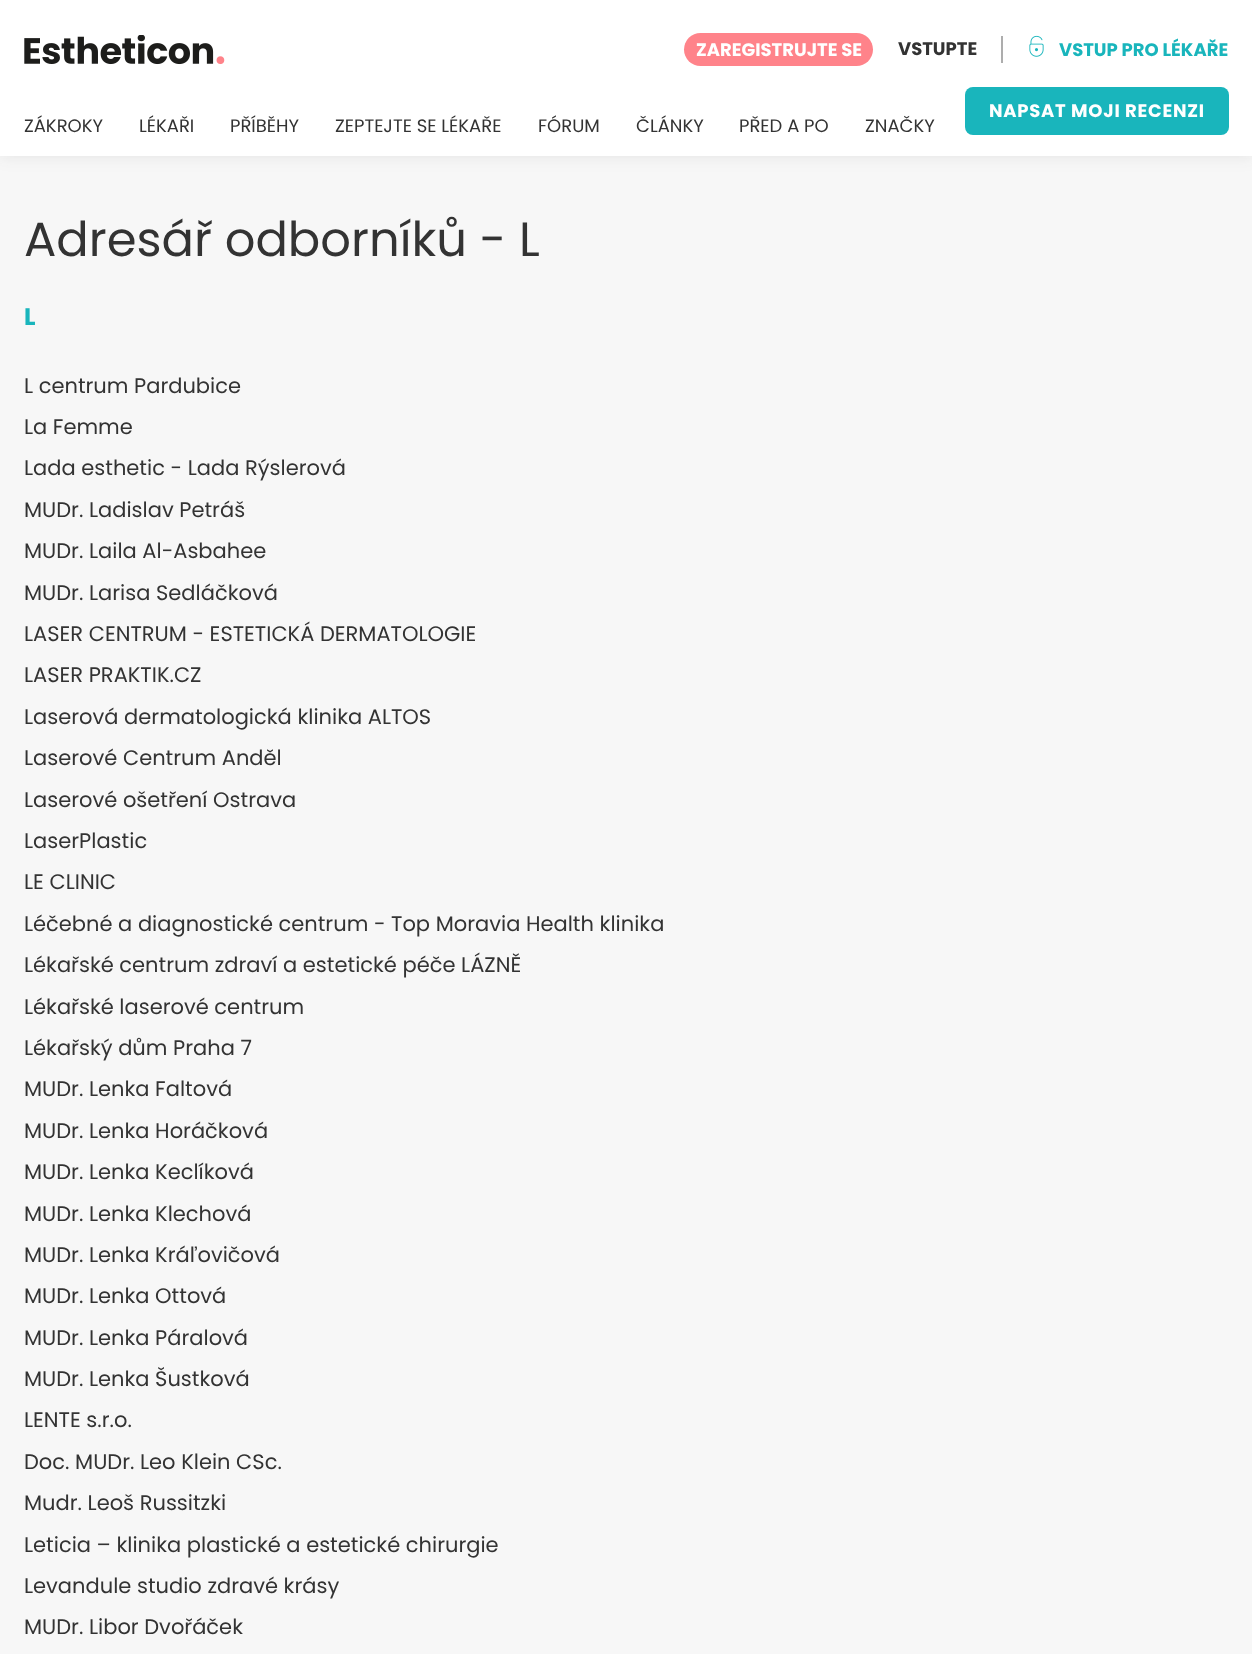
async function draw(canvas) {
  canvas.width = 1252
  canvas.height = 1654
  const ctx = canvas.getContext('2d')
  ctx.miterLimit = 4
  ctx.fontKerning = 'normal'
  async function loadImage(src) {
    const img = new Image()
    img.src = src
    await img.decode()
    return img
  }

  ctx.fillStyle = '#f7f7f7'
  ctx.fillRect(0, 0, 1252, 1654)
  ctx.fillStyle = '#33333314'
  ctx.filter = 'blur(7.5px)'
  ctx.beginPath()
  ctx.rect(0, 2, 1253, 156)
  ctx.fill()
  ctx.filter = 'none'
  ctx.fillStyle = '#fff'
  ctx.fillRect(0, 0, 1252, 156)
  ctx.drawImage(await loadImage('image0.png'), 24, 35, 201, 30)
  ctx.fillStyle = '#ff838a'
  ctx.beginPath()
  ctx.roundRect(684, 33, 189, 33, 16.5)
  ctx.fill()
  ctx.font = 'bold 18px Poppins'
  ctx.fillStyle = '#fff'
  ctx.fillText('ZAREGISTRUJTE SE', 696, 56)
  ctx.fillStyle = '#333'
  ctx.fillText('VSTUPTE', 898, 55)
  ctx.fillStyle = '#adadad'
  ctx.fillRect(1001, 36, 2, 27)
  ctx.drawImage(await loadImage('image1.png'), 1029, 35, 15, 22)
  ctx.fillStyle = '#19b5bc'
  ctx.fillText('VSTUP PRO LÉKAŘE', 1059, 56)
  ctx.beginPath()
  ctx.roundRect(965, 87, 264, 48, 8)
  ctx.fill()
  ctx.letterSpacing = '0.75px'
  ctx.fillStyle = '#fff'
  ctx.fillText('NAPSAT MOJI RECENZI', 989, 117)
  ctx.letterSpacing = '0px'
  ctx.font = '18px Poppins'
  ctx.fillStyle = '#333'
  ctx.fillText('ZÁKROKY', 24, 132)
  ctx.fillText('LÉKAŘI', 139, 132)
  ctx.fillText('PŘÍBĚHY', 230, 132)
  ctx.fillText('ZEPTEJTE SE LÉKAŘE', 335, 132)
  ctx.fillText('FÓRUM', 538, 132)
  ctx.fillText('ČLÁNKY', 636, 132)
  ctx.fillText('PŘED A PO', 739, 132)
  ctx.fillText('ZNAČKY', 865, 132)
  ctx.font = '48px Poppins'
  ctx.fillText('Adresář odborníků - L', 24, 256)
  ctx.font = 'bold 24px Poppins'
  ctx.fillStyle = '#19b5bc'
  ctx.fillText('L', 24, 325)
  ctx.font = '21px Poppins'
  ctx.fillStyle = '#333'
  ctx.fillText('L centrum Pardubice', 24, 393)
  ctx.fillText('La Femme', 24, 434)
  ctx.fillText('Lada esthetic - Lada Rýslerová', 24, 475)
  ctx.fillText('MUDr. Ladislav Petráš', 24, 517)
  ctx.fillText('MUDr. Laila Al-Asbahee', 24, 558)
  ctx.fillText('MUDr. Larisa Sedláčková', 24, 600)
  ctx.fillText('LASER CENTRUM - ESTETICKÁ DERMATOLOGIE', 24, 641)
  ctx.fillText('LASER PRAKTIK.CZ', 24, 682)
  ctx.fillText('Laserová dermatologická klinika ALTOS', 24, 724)
  ctx.fillText('Laserové Centrum Anděl', 24, 765)
  ctx.fillText('Laserové ošetření Ostrava', 24, 807)
  ctx.fillText('LaserPlastic', 24, 848)
  ctx.fillText('LE CLINIC', 24, 889)
  ctx.fillText('Léčebné a diagnostické centrum - Top Moravia Health klinika', 24, 931)
  ctx.fillText('Lékařské centrum zdraví a estetické péče LÁZNĚ', 24, 972)
  ctx.fillText('Lékařské laserové centrum', 24, 1014)
  ctx.fillText('Lékařský dům Praha 7', 24, 1055)
  ctx.fillText('MUDr. Lenka Faltová', 24, 1096)
  ctx.fillText('MUDr. Lenka Horáčková', 24, 1138)
  ctx.fillText('MUDr. Lenka Keclíková', 24, 1179)
  ctx.fillText('MUDr. Lenka Klechová', 24, 1221)
  ctx.fillText('MUDr. Lenka Kráľovičová', 24, 1262)
  ctx.fillText('MUDr. Lenka Ottová', 24, 1303)
  ctx.fillText('MUDr. Lenka Páralová', 24, 1345)
  ctx.fillText('MUDr. Lenka Šustková', 24, 1386)
  ctx.fillText('LENTE s.r.o.', 24, 1427)
  ctx.fillText('Doc. MUDr. Leo Klein CSc.', 24, 1469)
  ctx.fillText('Mudr. Leoš Russitzki', 24, 1510)
  ctx.fillText('Leticia – klinika plastické a estetické chirurgie', 24, 1552)
  ctx.fillText('Levandule studio zdravé krásy', 24, 1593)
  ctx.fillText('MUDr. Libor Dvořáček', 24, 1634)
}

draw(document.querySelector('canvas'))
